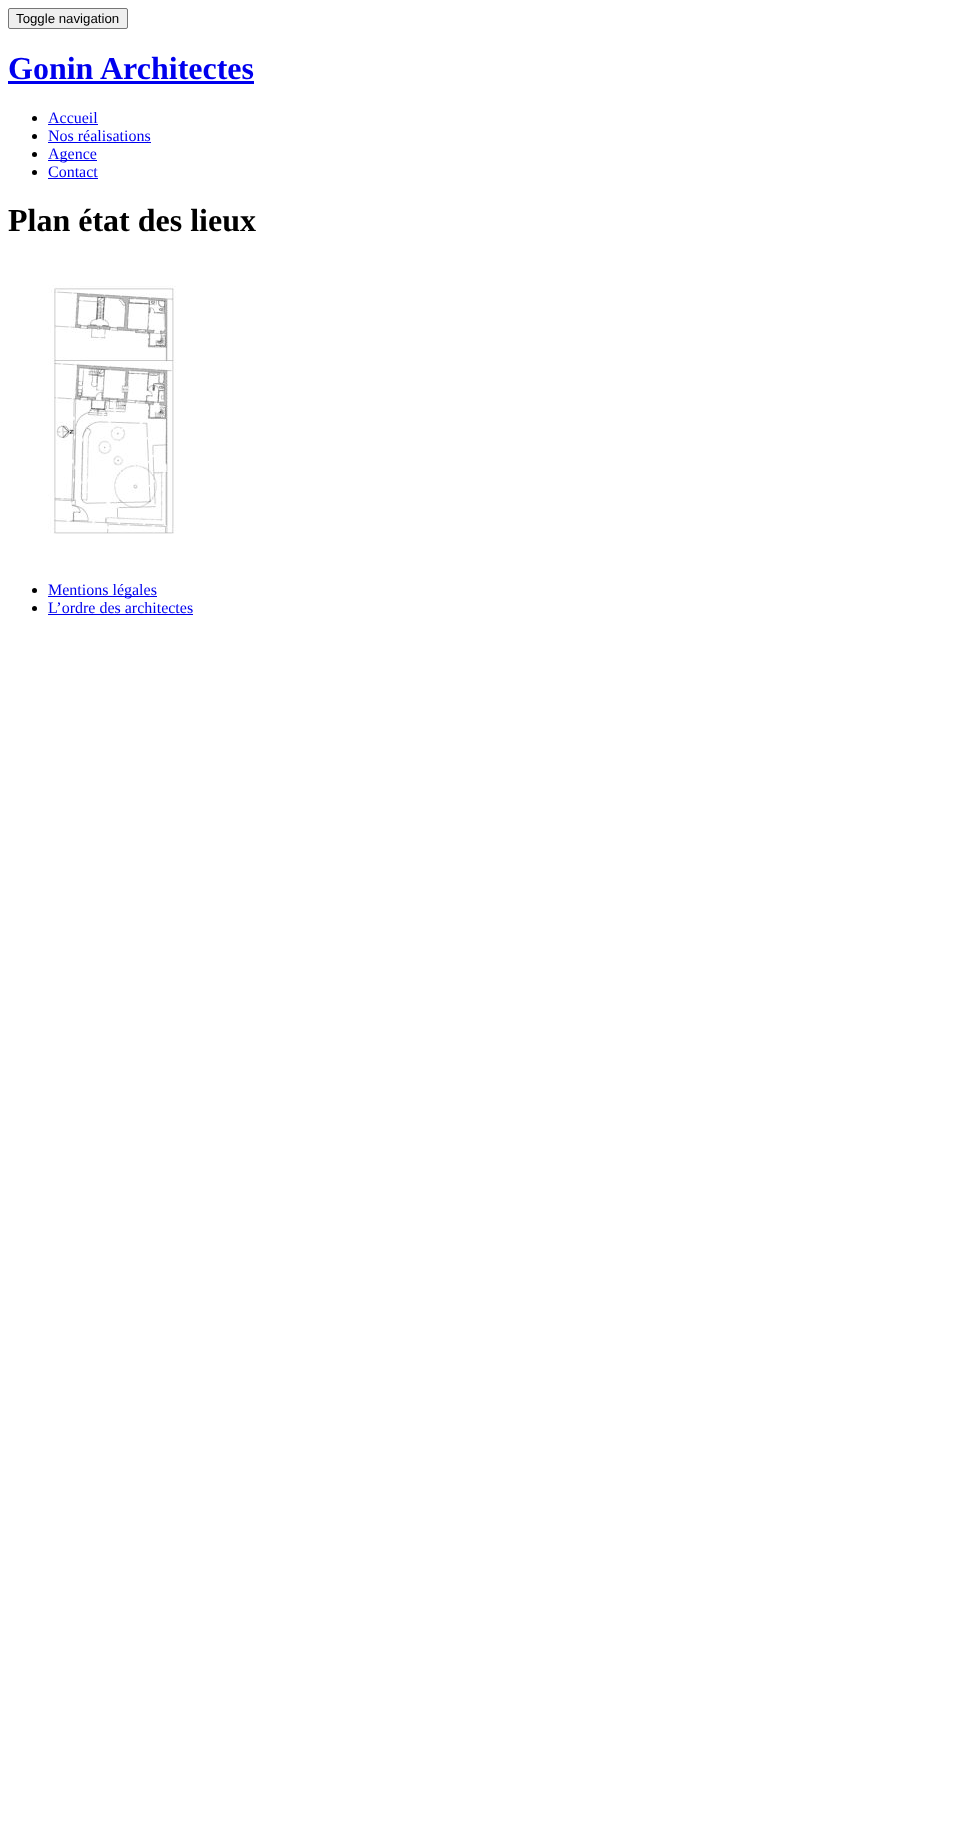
async function draw(canvas) {
  canvas.width = 954
  canvas.height = 1839
  const ctx = canvas.getContext('2d')
  ctx.miterLimit = 4
  ctx.fontKerning = 'normal'
  async function loadImage(src) {
    const img = new Image()
    img.src = src
    await img.decode()
    return img
  }

  ctx.fillStyle = '#fff'
  ctx.fillRect(0, 0, 954, 1839)
  ctx.fillStyle = '#efefef'
  ctx.beginPath()
  ctx.roundRect(8.5, 8.5, 119, 20, 1.5)
  ctx.fill()
  ctx.strokeStyle = '#767676'
  ctx.stroke()
  ctx.font = '13.25px Liberation Sans'
  ctx.fillStyle = '#000'
  ctx.fillText('Toggle navigation', 16, 23)
  ctx.font = 'bold 32px Liberation Serif'
  ctx.fillStyle = '#00e'
  ctx.fillText('Gonin', 8, 79)
  ctx.fillRect(8, 81, 246, 3)
  ctx.fillText('Architectes', 100, 79)
  ctx.fillStyle = '#000'
  ctx.beginPath()
  ctx.arc(34.5, 118.5, 2.5, 0, 2 * Math.PI)
  ctx.fill()
  ctx.font = '16px Liberation Serif'
  ctx.fillStyle = '#00e'
  ctx.fillText('Accueil', 48, 123)
  ctx.fillRect(48, 124, 50, 1)
  ctx.fillStyle = '#000'
  ctx.beginPath()
  ctx.arc(34.5, 136.5, 2.5, 0, 2 * Math.PI)
  ctx.fill()
  ctx.fillStyle = '#00e'
  ctx.fillText('Nos réalisations', 48, 141)
  ctx.fillRect(48, 142, 103, 1)
  ctx.fillStyle = '#000'
  ctx.beginPath()
  ctx.arc(34.5, 154.5, 2.5, 0, 2 * Math.PI)
  ctx.fill()
  ctx.fillStyle = '#00e'
  ctx.fillRect(48, 160, 49, 1)
  ctx.fillText('Agence', 48, 159)
  ctx.fillStyle = '#000'
  ctx.beginPath()
  ctx.arc(34.5, 172.5, 2.5, 0, 2 * Math.PI)
  ctx.fill()
  ctx.fillStyle = '#00e'
  ctx.fillText('Contact', 48, 177)
  ctx.fillRect(48, 178, 50, 1)
  ctx.font = 'bold 32px Liberation Serif'
  ctx.fillStyle = '#000'
  ctx.fillText('Plan état des lieux', 8, 231)
  ctx.drawImage(await loadImage('image0.png'), 48, 285, 128, 249)
  ctx.beginPath()
  ctx.arc(34.5, 590.5, 2.5, 0, 2 * Math.PI)
  ctx.fill()
  ctx.fillStyle = '#00e'
  ctx.fillRect(48, 596, 109, 1)
  ctx.font = '16px Liberation Serif'
  ctx.fillText('Mentions légales', 48, 595)
  ctx.fillStyle = '#000'
  ctx.beginPath()
  ctx.arc(34.5, 608.5, 2.5, 0, 2 * Math.PI)
  ctx.fill()
  ctx.fillStyle = '#00e'
  ctx.fillText('L’ordre des architectes', 48, 613)
  ctx.fillRect(48, 614, 145, 1)
}

draw(document.querySelector('canvas'))
